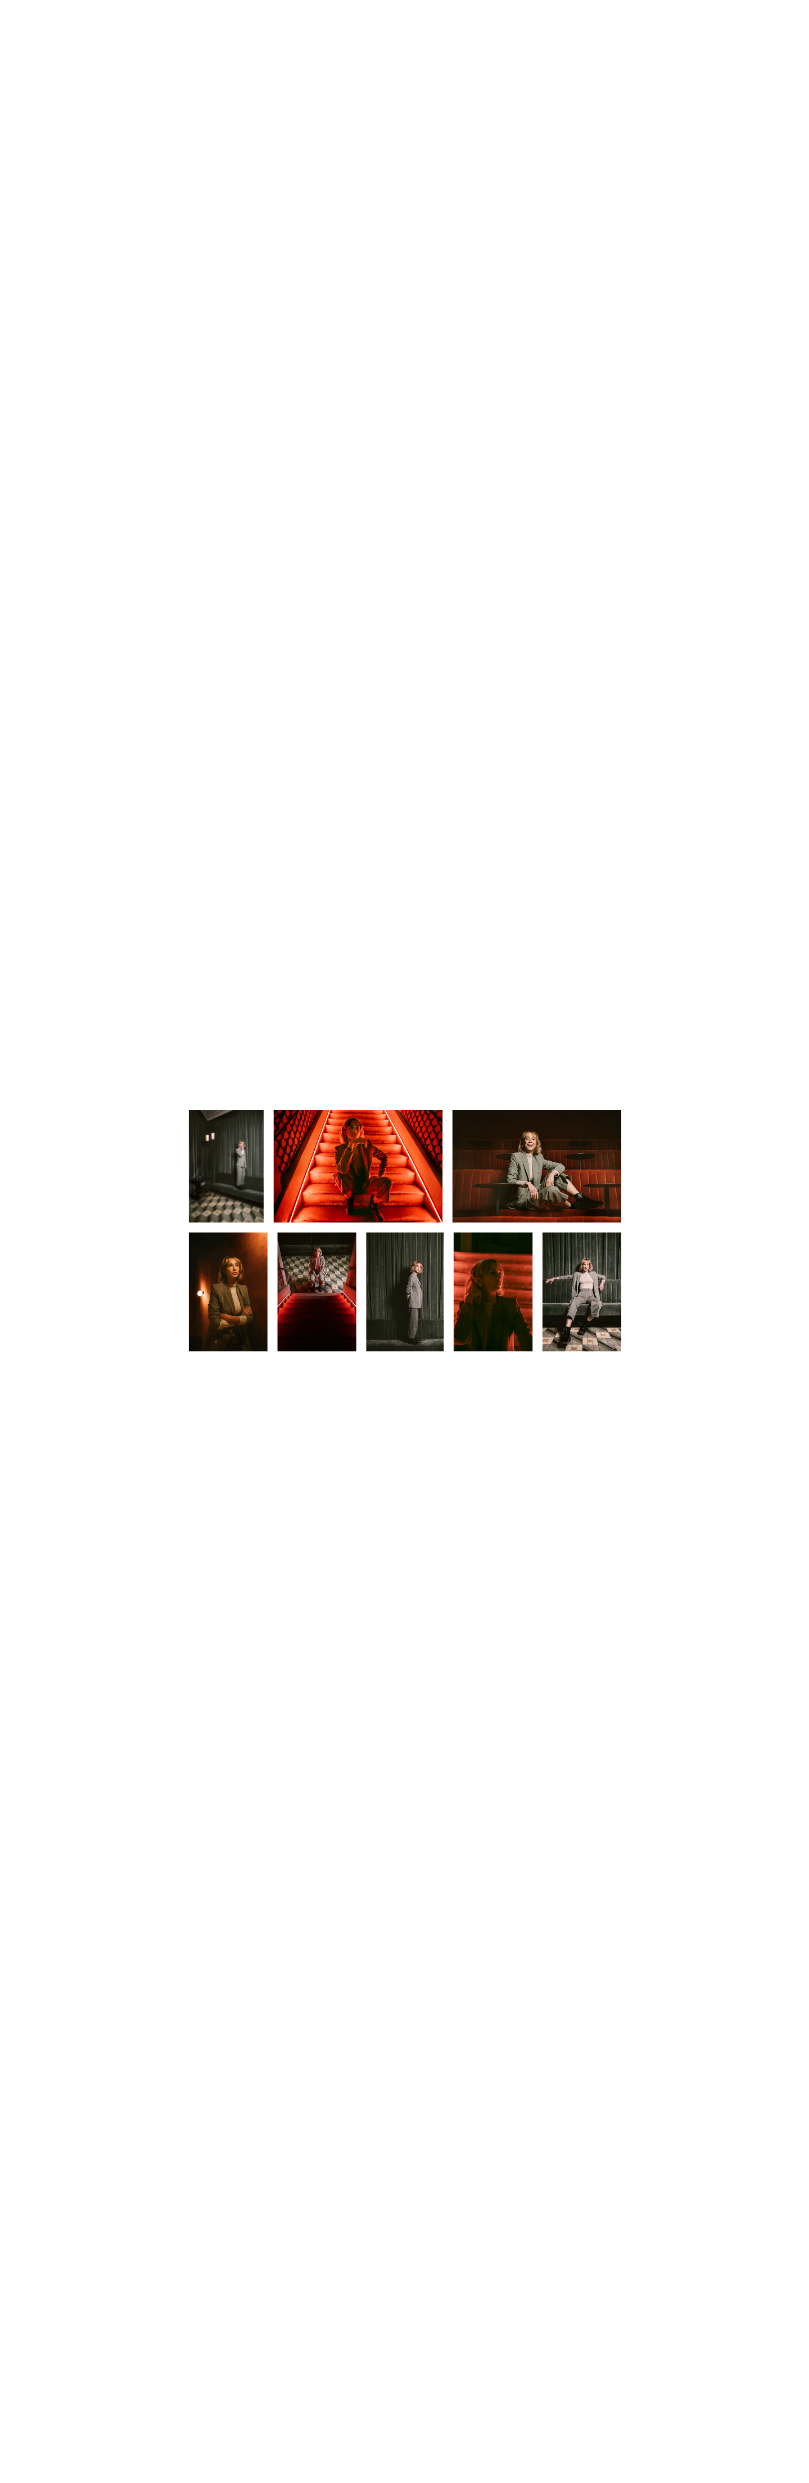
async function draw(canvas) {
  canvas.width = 809
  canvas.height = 2483
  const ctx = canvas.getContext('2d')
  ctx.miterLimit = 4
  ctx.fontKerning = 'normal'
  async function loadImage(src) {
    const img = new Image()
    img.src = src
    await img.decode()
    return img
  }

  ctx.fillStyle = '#fff'
  ctx.fillRect(0, 0, 809, 2483)
  ctx.drawImage(await loadImage('image0.png'), 188, 1110, 76, 113)
  ctx.drawImage(await loadImage('image1.png'), 273, 1110, 170, 113)
  ctx.drawImage(await loadImage('image2.png'), 452, 1110, 170, 113)
  ctx.drawImage(await loadImage('image3.png'), 188, 1232, 80, 120)
  ctx.drawImage(await loadImage('image4.png'), 277, 1232, 80, 120)
  ctx.drawImage(await loadImage('image5.png'), 366, 1232, 78, 120)
  ctx.drawImage(await loadImage('image6.png'), 453, 1232, 80, 120)
  ctx.drawImage(await loadImage('image7.png'), 542, 1232, 80, 120)
}

draw(document.querySelector('canvas'))
